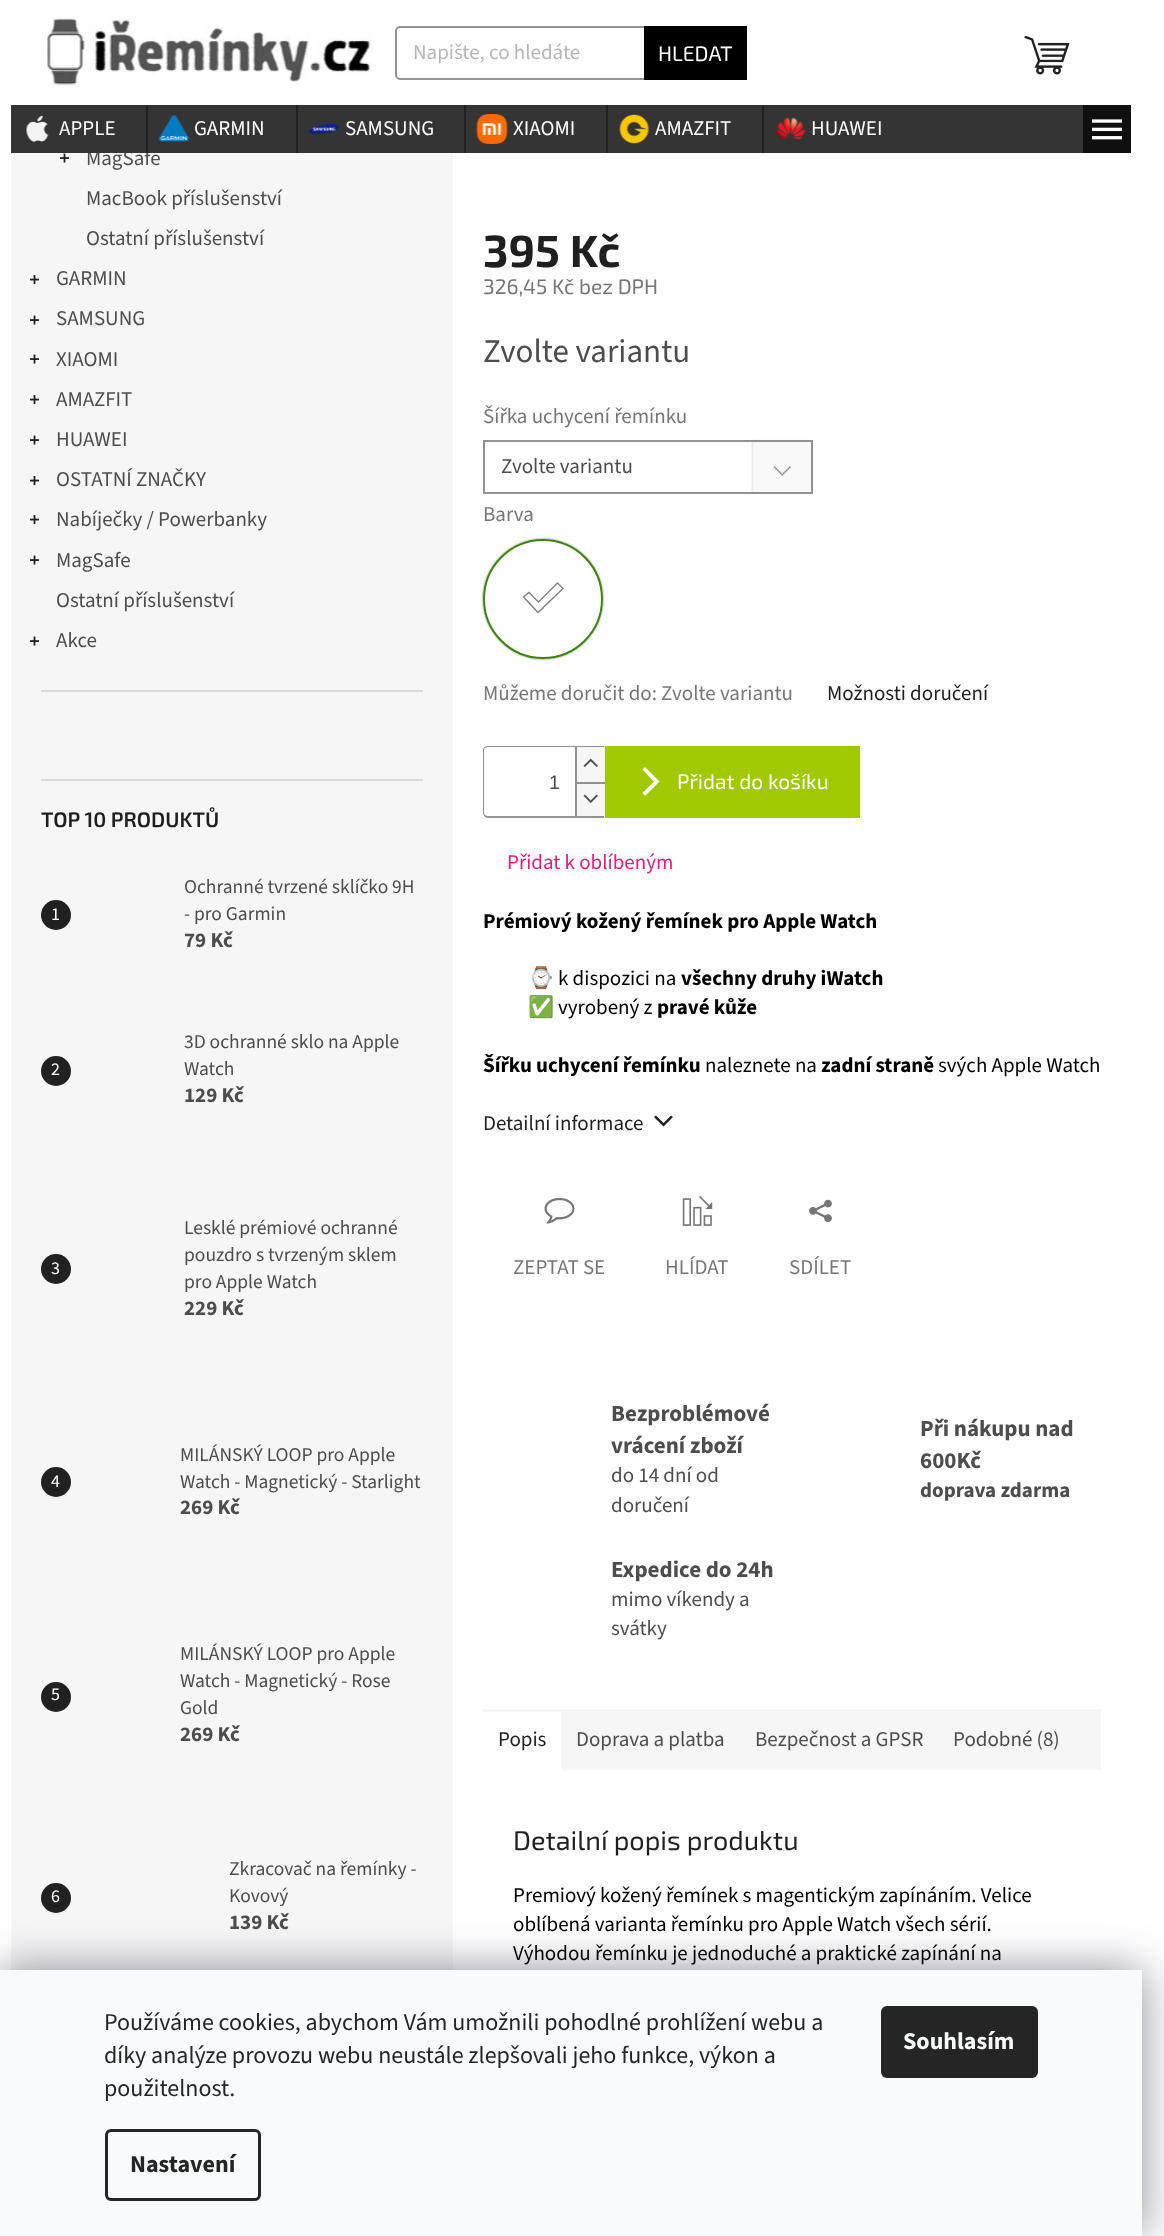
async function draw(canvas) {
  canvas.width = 1164
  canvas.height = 2236
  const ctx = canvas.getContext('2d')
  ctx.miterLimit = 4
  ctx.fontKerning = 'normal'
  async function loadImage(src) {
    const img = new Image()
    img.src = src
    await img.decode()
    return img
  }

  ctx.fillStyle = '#fff'
  ctx.fillRect(0, 0, 1164, 2236)
  ctx.fillStyle = '#f6f6f6'
  ctx.fillRect(11, 153, 442, 1817)
  ctx.font = '21px "Source Sans 3"'
  ctx.fillStyle = '#4d4d4d'
  ctx.fillText('MagSafe', 86, 165)
  ctx.fillStyle = '#fff'
  ctx.fillRect(87, 149, 64, 4)
  ctx.drawImage(await loadImage('image0.png'), 45, 15, 329, 70)
  ctx.beginPath()
  ctx.roundRect(396, 27, 350, 52, 4)
  ctx.strokeStyle = '#919191'
  ctx.lineWidth = 2
  ctx.stroke()
  ctx.fillStyle = '#b6b6b6'
  ctx.fillText('Napište, co hledáte', 413, 59)
  ctx.fillStyle = '#000'
  ctx.fillRect(644, 26, 103, 54)
  ctx.font = '21px "Exo 2"'
  ctx.fillStyle = '#fff'
  ctx.fillText('HLEDAT', 658, 61)
  ctx.drawImage(await loadImage('image1.png'), 1024, 35, 46, 40)
  ctx.fillStyle = '#343434'
  ctx.fillRect(11, 105, 1072, 48)
  ctx.drawImage(await loadImage('image2.png'), 26, 115, 23, 27)
  ctx.font = '21px "Source Sans 3"'
  ctx.fillStyle = '#fff'
  ctx.fillText('APPLE', 59, 135)
  ctx.fillStyle = '#222'
  ctx.fillRect(146, 105, 2, 48)
  ctx.drawImage(await loadImage('image3.png'), 158, 115, 32, 27)
  ctx.fillStyle = '#fff'
  ctx.fillText('GARMIN', 194, 135)
  ctx.fillStyle = '#222'
  ctx.fillRect(296, 105, 2, 48)
  ctx.drawImage(await loadImage('image4.png'), 308, 124, 32, 11)
  ctx.fillStyle = '#fff'
  ctx.fillText('SAMSUNG', 345, 135)
  ctx.fillStyle = '#222'
  ctx.fillRect(464, 105, 2, 48)
  ctx.drawImage(await loadImage('image5.png'), 476, 114, 32, 30)
  ctx.fillStyle = '#fff'
  ctx.fillText('XIAOMI', 513, 135)
  ctx.fillStyle = '#222'
  ctx.fillRect(606, 105, 2, 48)
  ctx.drawImage(await loadImage('image6.png'), 619, 114, 31, 30)
  ctx.fillStyle = '#fff'
  ctx.fillText('AMAZFIT', 655, 135)
  ctx.fillStyle = '#222'
  ctx.fillRect(762, 105, 2, 48)
  ctx.drawImage(await loadImage('image7.png'), 775, 117, 31, 23)
  ctx.fillStyle = '#fff'
  ctx.fillText('HUAWEI', 811, 135)
  ctx.fillStyle = '#0f0f0f'
  ctx.fillRect(1083, 105, 48, 48)
  ctx.drawImage(await loadImage('image8.png'), 1092, 119, 30, 21)
  ctx.fillStyle = '#dadada'
  ctx.fillRect(41, 690, 382, 2)
  ctx.drawImage(await loadImage('image9.png'), 60, 153, 9, 10)
  ctx.fillStyle = '#4d4d4d'
  ctx.fillText('MacBook příslušenství', 86, 205)
  ctx.fillText('Ostatní příslušenství', 86, 245)
  ctx.drawImage(await loadImage('image10.png'), 30, 275, 9, 10)
  ctx.fillText('GARMIN', 56, 285)
  ctx.drawImage(await loadImage('image9.png'), 30, 315, 9, 10)
  ctx.fillText('SAMSUNG', 56, 325)
  ctx.drawImage(await loadImage('image9.png'), 30, 354, 9, 10)
  ctx.fillText('XIAOMI', 56, 366)
  ctx.drawImage(await loadImage('image10.png'), 30, 395, 9, 10)
  ctx.fillText('AMAZFIT', 56, 406)
  ctx.drawImage(await loadImage('image9.png'), 30, 435, 9, 10)
  ctx.fillText('HUAWEI', 56, 446)
  ctx.drawImage(await loadImage('image10.png'), 30, 476, 9, 10)
  ctx.fillText('OSTATNÍ ZNAČKY', 56, 486)
  ctx.drawImage(await loadImage('image10.png'), 30, 515, 9, 10)
  ctx.fillText('Nabíječky / Powerbanky', 56, 526)
  ctx.drawImage(await loadImage('image9.png'), 30, 555, 9, 10)
  ctx.fillText('MagSafe', 56, 567)
  ctx.fillText('Ostatní příslušenství', 56, 607)
  ctx.drawImage(await loadImage('image9.png'), 30, 636, 9, 10)
  ctx.fillText('Akce', 56, 647)
  ctx.fillStyle = '#dadada'
  ctx.fillRect(41, 779, 382, 2)
  ctx.font = '600 21px "Exo 2"'
  ctx.fillStyle = '#1f1f1f'
  ctx.fillText('TOP 10 PRODUKTŮ', 41, 827)
  ctx.fillStyle = '#212121'
  ctx.beginPath()
  ctx.arc(56, 915, 15, 0, 2 * Math.PI)
  ctx.fill()
  ctx.font = '18px "Source Sans 3"'
  ctx.fillStyle = '#fff'
  ctx.fillText('1', 51, 920)
  ctx.font = '19.5px "Source Sans 3"'
  ctx.fillStyle = '#4d4d4d'
  ctx.fillText('Ochranné tvrzené sklíčko 9H', 184, 893)
  ctx.fillText('- pro Garmin', 184, 920)
  ctx.font = 'bold 21px "Source Sans 3"'
  ctx.fillText('79 Kč', 184, 947)
  ctx.fillStyle = '#212121'
  ctx.beginPath()
  ctx.arc(56, 1071, 15, 0, 2 * Math.PI)
  ctx.fill()
  ctx.font = '18px "Source Sans 3"'
  ctx.fillStyle = '#fff'
  ctx.fillText('2', 51, 1075)
  ctx.font = '19.5px "Source Sans 3"'
  ctx.fillStyle = '#4d4d4d'
  ctx.fillText('3D ochranné sklo na Apple', 184, 1048)
  ctx.fillText('Watch', 184, 1075)
  ctx.font = 'bold 21px "Source Sans 3"'
  ctx.fillText('129 Kč', 184, 1102)
  ctx.fillStyle = '#212121'
  ctx.beginPath()
  ctx.arc(56, 1269, 15, 0, 2 * Math.PI)
  ctx.fill()
  ctx.font = '18px "Source Sans 3"'
  ctx.fillStyle = '#fff'
  ctx.fillText('3', 51, 1274)
  ctx.font = '19.5px "Source Sans 3"'
  ctx.fillStyle = '#4d4d4d'
  ctx.fillText('Lesklé prémiové ochranné', 184, 1234)
  ctx.fillText('pouzdro s tvrzeným sklem', 184, 1261)
  ctx.fillText('pro Apple Watch', 184, 1288)
  ctx.font = 'bold 21px "Source Sans 3"'
  ctx.fillText('229 Kč', 184, 1315)
  ctx.fillStyle = '#212121'
  ctx.beginPath()
  ctx.arc(56, 1482, 15, 0, 2 * Math.PI)
  ctx.fill()
  ctx.font = '18px "Source Sans 3"'
  ctx.fillStyle = '#fff'
  ctx.fillText('4', 51, 1487)
  ctx.font = '19.5px "Source Sans 3"'
  ctx.fillStyle = '#4d4d4d'
  ctx.fillText('MILÁNSKÝ LOOP pro Apple', 180, 1461)
  ctx.fillText('Watch - Magnetický - Starlight', 180, 1488)
  ctx.font = 'bold 21px "Source Sans 3"'
  ctx.fillText('269 Kč', 180, 1514)
  ctx.fillStyle = '#212121'
  ctx.beginPath()
  ctx.arc(56, 1697, 15, 0, 2 * Math.PI)
  ctx.fill()
  ctx.font = '18px "Source Sans 3"'
  ctx.fillStyle = '#fff'
  ctx.fillText('5', 51, 1700)
  ctx.font = '19.5px "Source Sans 3"'
  ctx.fillStyle = '#4d4d4d'
  ctx.fillText('MILÁNSKÝ LOOP pro Apple', 180, 1660)
  ctx.fillText('Watch - Magnetický - Rose', 180, 1687)
  ctx.fillText('Gold', 180, 1714)
  ctx.font = 'bold 21px "Source Sans 3"'
  ctx.fillText('269 Kč', 180, 1741)
  ctx.fillStyle = '#212121'
  ctx.beginPath()
  ctx.arc(56, 1898, 15, 0, 2 * Math.PI)
  ctx.fill()
  ctx.font = '18px "Source Sans 3"'
  ctx.fillStyle = '#fff'
  ctx.fillText('6', 51, 1902)
  ctx.font = '19.5px "Source Sans 3"'
  ctx.fillStyle = '#4d4d4d'
  ctx.fillText('Zkracovač na řemínky -', 229, 1875)
  ctx.fillText('Kovový', 229, 1902)
  ctx.font = 'bold 21px "Source Sans 3"'
  ctx.fillText('139 Kč', 229, 1929)
  ctx.font = 'bold 45px "Exo 2"'
  ctx.fillStyle = '#1f1f1f'
  ctx.fillText('395 Kč', 483, 267)
  ctx.font = '21px "Exo 2"'
  ctx.fillStyle = '#767676'
  ctx.fillText('326,45 Kč bez DPH', 483, 294)
  ctx.font = '33px "Source Sans 3"'
  ctx.fillStyle = '#4d4d4d'
  ctx.fillText('Zvolte variantu', 483, 362)
  ctx.font = '21px "Source Sans 3"'
  ctx.fillStyle = '#767676'
  ctx.fillText('Šířka uchycení řemínku', 483, 423)
  ctx.drawImage(await loadImage('image11.png'), 751, 439, 60, 53)
  ctx.strokeRect(484, 441, 328, 52)
  ctx.fillStyle = '#4d4d4d'
  ctx.fillText('Zvolte variantu', 501, 473)
  ctx.fillStyle = '#767676'
  ctx.fillText('Barva', 483, 521)
  ctx.save()
  ctx.beginPath()
  ctx.moveTo(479, 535)
  ctx.lineTo(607, 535)
  ctx.lineTo(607, 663)
  ctx.lineTo(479, 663)
  ctx.closePath()
  ctx.moveTo(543, 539)
  ctx.bezierCurveTo(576, 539, 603, 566, 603, 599)
  ctx.bezierCurveTo(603, 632, 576, 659, 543, 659)
  ctx.bezierCurveTo(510, 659, 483, 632, 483, 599)
  ctx.bezierCurveTo(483, 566, 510, 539, 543, 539)
  ctx.closePath()
  ctx.clip('evenodd')
  ctx.fillStyle = '#00000080'
  ctx.filter = 'blur(1px)'
  ctx.beginPath()
  ctx.roundRect(483, 539, 120, 120, 60)
  ctx.fill()
  ctx.filter = 'none'
  ctx.restore()
  ctx.beginPath()
  ctx.arc(543, 599, 59, 0, 2 * Math.PI)
  ctx.strokeStyle = '#3c840f'
  ctx.stroke()
  ctx.beginPath()
  ctx.moveTo(557.5, 583)
  ctx.lineTo(538.5, 602)
  ctx.lineTo(529, 592.5)
  ctx.lineTo(523.5, 597)
  ctx.lineTo(538, 612.5)
  ctx.lineTo(563, 588.5)
  ctx.closePath()
  ctx.strokeStyle = '#808080'
  ctx.lineWidth = 1.4
  ctx.stroke()
  ctx.fillText('Můžeme doručit do: Zvolte variantu', 483, 700)
  ctx.fillStyle = '#1f1f1f'
  ctx.fillText('Možnosti doručení', 827, 700)
  ctx.fillStyle = '#919191'
  ctx.beginPath()
  ctx.moveTo(488, 746)
  ctx.lineTo(604, 746)
  ctx.lineTo(604, 818)
  ctx.lineTo(488, 818)
  ctx.bezierCurveTo(485, 818, 483, 815, 483, 813)
  ctx.lineTo(483, 750)
  ctx.bezierCurveTo(483, 748, 485, 746, 488, 746)
  ctx.closePath()
  ctx.moveTo(488, 747)
  ctx.lineTo(604, 747)
  ctx.lineTo(604, 816)
  ctx.lineTo(488, 816)
  ctx.bezierCurveTo(486, 816, 484, 815, 484, 813)
  ctx.lineTo(484, 750)
  ctx.bezierCurveTo(484, 748, 486, 747, 488, 747)
  ctx.closePath()
  ctx.fill('evenodd')
  ctx.font = '19.5px Liberation Sans'
  ctx.fillStyle = '#4d4d4d'
  ctx.fillText('1', 549, 789)
  ctx.fillStyle = '#f6f6f6'
  ctx.fillRect(577, 747, 28, 35)
  ctx.fillStyle = '#919191'
  ctx.fillRect(575, 747, 2, 35)
  ctx.drawImage(await loadImage('image12.png'), 583, 758, 15, 9)
  ctx.fillStyle = '#f6f6f6'
  ctx.fillRect(577, 784, 28, 32)
  ctx.fillStyle = '#919191'
  ctx.fillRect(575, 782, 30, 2)
  ctx.fillRect(575, 782, 2, 34)
  ctx.drawImage(await loadImage('image13.png'), 583, 794, 15, 9)
  ctx.fillStyle = '#a0c900'
  ctx.fillRect(605, 746, 255, 72)
  ctx.fillStyle = '#fff'
  ctx.beginPath()
  ctx.moveTo(645, 796)
  ctx.lineTo(642.5, 793)
  ctx.lineTo(654, 781.5)
  ctx.lineTo(642.5, 769.5)
  ctx.lineTo(645, 767)
  ctx.lineTo(659.5, 781.5)
  ctx.closePath()
  ctx.fill()
  ctx.font = '21px "Exo 2"'
  ctx.fillText('Přidat do košíku', 677, 789)
  ctx.font = '21px "Source Sans 3"'
  ctx.fillStyle = '#e91b7d'
  ctx.fillText('Přidat k oblíbeným', 507, 869)
  ctx.font = 'bold 21px "Source Sans 3"'
  ctx.fillStyle = '#000'
  ctx.fillText('Prémiový kožený řemínek pro Apple Watch', 483, 928)
  ctx.font = '21px Noto Color Emoji'
  ctx.fillText('⌚', 528, 985)
  ctx.font = '21px "Source Sans 3"'
  ctx.fillText('k dispozici na', 558, 985)
  ctx.font = 'bold 21px "Source Sans 3"'
  ctx.fillText('všechny druhy iWatch', 681, 985)
  ctx.font = '21px Noto Color Emoji'
  ctx.fillText('✅', 528, 1014)
  ctx.font = '21px "Source Sans 3"'
  ctx.fillText('vyrobený z', 558, 1014)
  ctx.font = 'bold 21px "Source Sans 3"'
  ctx.fillText('pravé kůže', 657, 1014)
  ctx.fillText('Šířku uchycení řemínku', 483, 1072)
  ctx.font = '21px "Source Sans 3"'
  ctx.fillText('naleznete na', 705, 1072)
  ctx.font = 'bold 21px "Source Sans 3"'
  ctx.fillText('zadní straně', 821, 1072)
  ctx.font = '21px "Source Sans 3"'
  ctx.fillText('svých Apple Watch', 938, 1072)
  ctx.fillStyle = '#1f1f1f'
  ctx.fillText('Detailní informace', 483, 1130)
  ctx.fillStyle = '#212121'
  ctx.beginPath()
  ctx.moveTo(654, 1117)
  ctx.lineTo(656, 1115.5)
  ctx.lineTo(663.5, 1123)
  ctx.lineTo(671, 1115.5)
  ctx.lineTo(673, 1117)
  ctx.lineTo(663.5, 1126.5)
  ctx.closePath()
  ctx.fill()
  ctx.drawImage(await loadImage('image14.png'), 544, 1197, 31, 27)
  ctx.fillStyle = '#767676'
  ctx.fillText('ZEPTAT SE', 513, 1274)
  ctx.drawImage(await loadImage('image15.png'), 682, 1196, 31, 30)
  ctx.fillText('HLÍDAT', 665, 1274)
  ctx.drawImage(await loadImage('image16.png'), 809, 1199, 23, 23)
  ctx.fillText('SDÍLET', 789, 1274)
  ctx.font = 'bold 23px "Source Sans 3"'
  ctx.fillStyle = '#4d4d4d'
  ctx.fillText('Bezproblémové', 611, 1421)
  ctx.fillText('vrácení zboží', 611, 1453)
  ctx.font = '21px "Source Sans 3"'
  ctx.fillText('do 14 dní od', 611, 1482)
  ctx.fillText('doručení', 611, 1512)
  ctx.font = 'bold 23px "Source Sans 3"'
  ctx.fillText('Při nákupu nad', 920, 1436)
  ctx.fillText('600Kč', 920, 1468)
  ctx.font = 'bold 21px "Source Sans 3"'
  ctx.fillText('doprava zdarma', 920, 1497)
  ctx.font = 'bold 23px "Source Sans 3"'
  ctx.fillText('Expedice do 24h', 611, 1577)
  ctx.font = '21px "Source Sans 3"'
  ctx.fillText('mimo víkendy a', 611, 1606)
  ctx.fillText('svátky', 611, 1635)
  ctx.fillStyle = '#f6f6f6'
  ctx.fillRect(561, 1709, 540, 61)
  ctx.fillRect(483, 1709, 78, 3)
  ctx.fillStyle = '#1f1f1f'
  ctx.fillText('Popis', 498, 1746)
  ctx.fillStyle = '#4d4d4d'
  ctx.fillText('Doprava a platba', 576, 1746)
  ctx.fillText('Bezpečnost a GPSR', 755, 1746)
  ctx.fillText('Podobné (8)', 953, 1746)
  ctx.font = '27px "Exo 2"'
  ctx.fillStyle = '#1f1f1f'
  ctx.fillText('Detailní popis produktu', 513, 1850)
  ctx.font = '21px "Source Sans 3"'
  ctx.fillStyle = '#000'
  ctx.fillText('Premiový kožený řemínek s magentickým zapínáním. Velice', 513, 1902)
  ctx.fillText('oblíbená varianta řemínku pro Apple Watch všech sérií.', 513, 1931)
  ctx.fillText('Výhodou řemínku je jednoduché a praktické zapínání na', 513, 1960)
  ctx.fillStyle = '#1b193980'
  ctx.filter = 'blur(22.5px)'
  ctx.beginPath()
  ctx.rect(0, 1970, 1142, 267)
  ctx.fill()
  ctx.filter = 'none'
  ctx.fillStyle = '#f8fafb'
  ctx.fillRect(0, 1970, 1142, 266)
  ctx.font = '24px "Source Sans 3"'
  ctx.fillStyle = '#252525'
  ctx.fillText('Používáme cookies, abychom Vám umožnili pohodlné prohlížení webu a', 104, 2030)
  ctx.fillText('díky analýze provozu webu neustále zlepšovali jeho funkce, výkon a', 104, 2063)
  ctx.fillText('použitelnost.', 104, 2096)
  ctx.beginPath()
  ctx.roundRect(106.5, 2130.5, 153, 69, 4.5)
  ctx.strokeStyle = '#252525'
  ctx.lineWidth = 3
  ctx.stroke()
  ctx.font = 'bold 24px "Source Sans 3"'
  ctx.fillText('Nastavení', 130, 2172)
  ctx.beginPath()
  ctx.roundRect(881, 2006, 157, 72, 6)
  ctx.fill()
  ctx.fillStyle = '#f8fafb'
  ctx.fillText('Souhlasím', 903, 2049)
}

draw(document.querySelector('canvas'))
